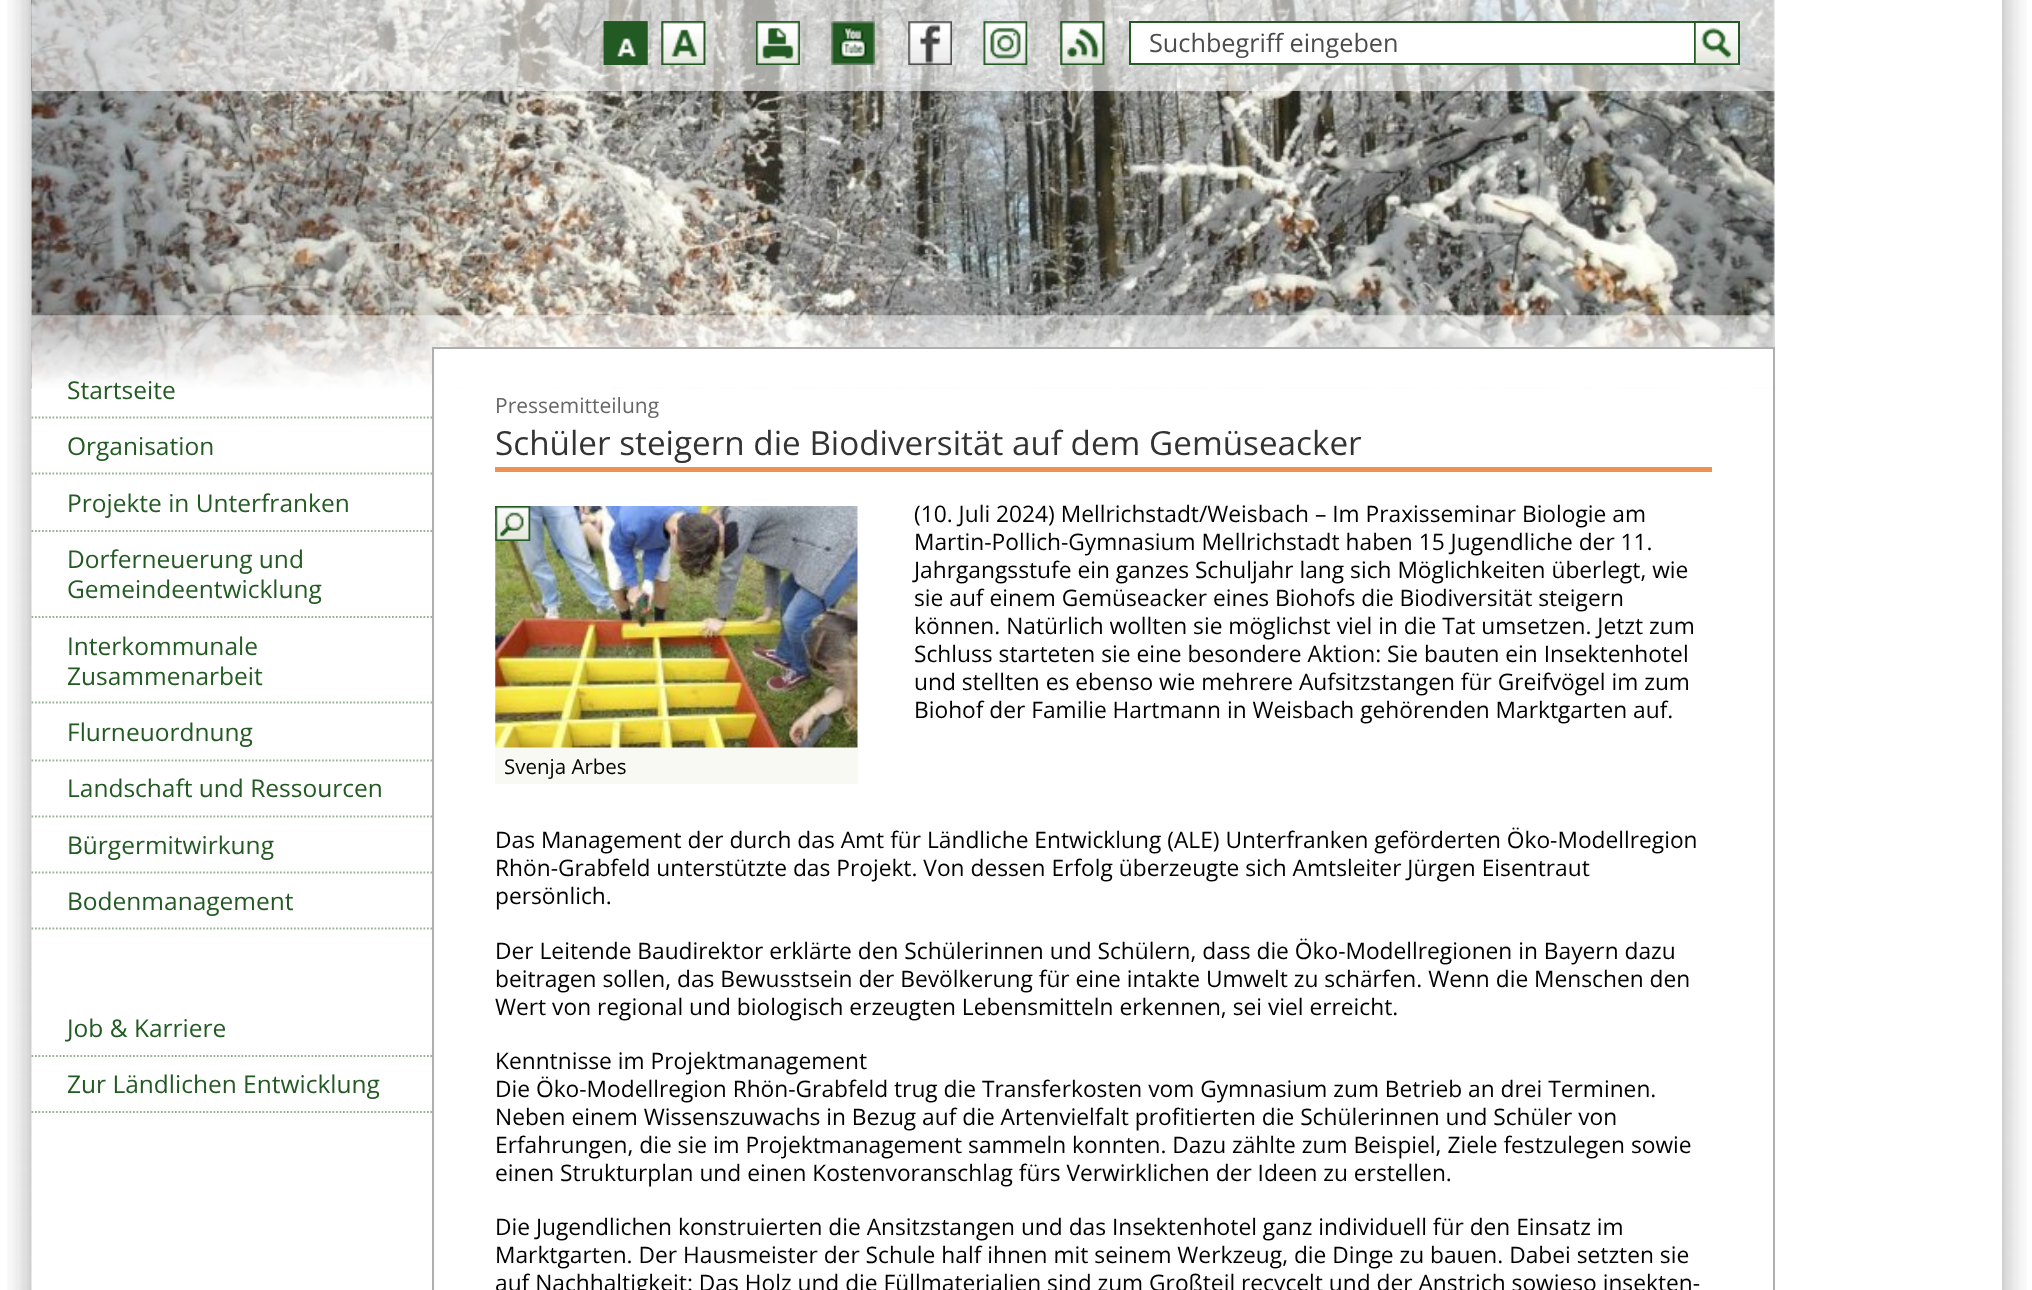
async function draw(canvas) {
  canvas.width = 2032
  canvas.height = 1290
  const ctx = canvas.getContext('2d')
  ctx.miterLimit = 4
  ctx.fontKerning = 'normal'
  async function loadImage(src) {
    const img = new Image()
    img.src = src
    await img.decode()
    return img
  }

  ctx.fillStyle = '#fff'
  ctx.fillRect(0, 0, 2032, 1290)
  ctx.drawImage(await loadImage('image0.png'), 7, 0, 25, 1290)
  ctx.drawImage(await loadImage('image1.png'), 2002, 0, 25, 1290)
  ctx.drawImage(await loadImage('image2.png'), 31, 0, 1744, 389)
  ctx.fillStyle = '#ffffff99'
  ctx.fillRect(32, 0, 1743, 91)
  ctx.drawImage(await loadImage('image3.png'), 603, 21, 45, 44)
  ctx.drawImage(await loadImage('image4.png'), 603, 21, 45, 44)
  ctx.drawImage(await loadImage('image5.png'), 661, 21, 45, 44)
  ctx.drawImage(await loadImage('image6.png'), 661, 21, 45, 44)
  ctx.drawImage(await loadImage('image7.png'), 756, 21, 44, 44)
  ctx.drawImage(await loadImage('image8.png'), 756, 21, 44, 44)
  ctx.drawImage(await loadImage('image9.png'), 831, 21, 44, 44)
  ctx.drawImage(await loadImage('image10.png'), 908, 21, 44, 44)
  ctx.drawImage(await loadImage('image11.png'), 983, 21, 45, 44)
  ctx.drawImage(await loadImage('image12.png'), 1060, 21, 45, 44)
  ctx.drawImage(await loadImage('image13.png'), 1060, 21, 45, 44)
  ctx.fillStyle = '#fff'
  ctx.beginPath()
  ctx.rect(1130, 22, 609, 42)
  ctx.fill()
  ctx.strokeStyle = '#235a23'
  ctx.lineWidth = 2
  ctx.stroke()
  ctx.font = '25.25px Open Sans'
  ctx.fillStyle = '#4c4c4c'
  ctx.fillText('Suchbegriff eingeben', 1149, 52)
  ctx.fillStyle = '#235a23'
  ctx.fillRect(1694, 21, 2, 44)
  ctx.drawImage(await loadImage('image14.png'), 1695, 23, 43, 41)
  ctx.drawImage(await loadImage('image15.png'), 31, 315, 1744, 76)
  ctx.beginPath()
  ctx.moveTo(31.5, 417.5)
  ctx.lineTo(432, 417.5)
  ctx.strokeStyle = '#99b299'
  ctx.lineWidth = 1.8
  ctx.setLineDash([1.75, 1.75])
  ctx.stroke()
  ctx.font = '24.5px Open Sans'
  ctx.fillText('Startseite', 67, 399)
  ctx.beginPath()
  ctx.moveTo(31.5, 473.5)
  ctx.lineTo(432, 473.5)
  ctx.stroke()
  ctx.fillText('Organisation', 67, 455)
  ctx.beginPath()
  ctx.moveTo(31.5, 531)
  ctx.lineTo(432, 531)
  ctx.stroke()
  ctx.fillText('Projekte in Unterfranken', 67, 512)
  ctx.beginPath()
  ctx.moveTo(31.5, 617)
  ctx.lineTo(432, 617)
  ctx.stroke()
  ctx.fillText('Dorferneuerung und', 67, 568)
  ctx.fillText('Gemeindeentwicklung', 67, 598)
  ctx.beginPath()
  ctx.moveTo(31.5, 702.5)
  ctx.lineTo(432, 702.5)
  ctx.stroke()
  ctx.fillText('Interkommunale', 67, 655)
  ctx.fillText('Zusammenarbeit', 67, 685)
  ctx.beginPath()
  ctx.moveTo(31.5, 760.5)
  ctx.lineTo(432, 760.5)
  ctx.stroke()
  ctx.fillText('Flurneuordnung', 67, 741)
  ctx.beginPath()
  ctx.moveTo(31.5, 816.5)
  ctx.lineTo(432, 816.5)
  ctx.stroke()
  ctx.fillText('Landschaft und Ressourcen', 67, 797)
  ctx.beginPath()
  ctx.moveTo(31.5, 872.5)
  ctx.lineTo(432, 872.5)
  ctx.stroke()
  ctx.fillText('Bürgermitwirkung', 67, 854)
  ctx.beginPath()
  ctx.moveTo(31.5, 928.5)
  ctx.lineTo(432, 928.5)
  ctx.stroke()
  ctx.fillText('Bodenmanagement', 67, 910)
  ctx.beginPath()
  ctx.moveTo(31.5, 1056)
  ctx.lineTo(432, 1056)
  ctx.stroke()
  ctx.fillText('Job & Karriere', 67, 1037)
  ctx.beginPath()
  ctx.moveTo(31.5, 1112)
  ctx.lineTo(432, 1112)
  ctx.stroke()
  ctx.fillText('Zur Ländlichen Entwicklung', 67, 1093)
  ctx.fillStyle = '#fff'
  ctx.fillRect(434, 349, 1339, 38)
  ctx.fillStyle = '#aeaeae'
  ctx.fillRect(432, 347, 1343, 2)
  ctx.fillRect(1773, 347, 2, 943)
  ctx.fillRect(432, 347, 2, 943)
  ctx.fillStyle = '#ed9151'
  ctx.fillRect(495, 467, 1217, 5)
  ctx.font = '21px Open Sans'
  ctx.fillStyle = '#666'
  ctx.fillText('Pressemitteilung', 495, 413)
  ctx.font = '33.25px Open Sans'
  ctx.fillStyle = '#333'
  ctx.fillText('Schüler steigern die Biodiversität auf dem Gemüseacker', 495, 455)
  ctx.font = '22.75px Open Sans'
  ctx.fillStyle = '#000'
  ctx.fillText('(10. Juli 2024) Mellrichstadt/Weisbach – Im Praxisseminar Biologie am', 914, 522)
  ctx.fillText('Martin-Pollich-Gymnasium Mellrichstadt haben 15 Jugendliche der 11.', 914, 550)
  ctx.fillText('Jahrgangsstufe ein ganzes Schuljahr lang sich Möglichkeiten überlegt, wie', 914, 578)
  ctx.fillText('sie auf einem Gemüseacker eines Biohofs die Biodiversität steigern', 914, 606)
  ctx.fillText('können. Natürlich wollten sie möglichst viel in die Tat umsetzen. Jetzt zum', 914, 634)
  ctx.fillText('Schluss starteten sie eine besondere Aktion: Sie bauten ein Insektenhotel', 914, 662)
  ctx.fillText('und stellten es ebenso wie mehrere Aufsitzstangen für Greifvögel im zum', 914, 690)
  ctx.fillText('Biohof der Familie Hartmann in Weisbach gehörenden Marktgarten auf.', 914, 718)
  ctx.fillStyle = '#f7f9f2'
  ctx.fillRect(495, 747, 363, 37)
  ctx.drawImage(await loadImage('image16.png'), 495, 506, 363, 242)
  ctx.drawImage(await loadImage('image17.png'), 495, 506, 36, 35)
  ctx.font = '20.5px Open Sans'
  ctx.fillStyle = '#000'
  ctx.fillText('Svenja Arbes', 504, 774)
  ctx.font = '22.75px Open Sans'
  ctx.fillText('Das Management der durch das Amt für Ländliche Entwicklung (ALE) Unterfranken geförderten Öko-Modellregion', 495, 848)
  ctx.fillText('Rhön-Grabfeld unterstützte das Projekt. Von dessen Erfolg überzeugte sich Amtsleiter Jürgen Eisentraut', 495, 876)
  ctx.fillText('persönlich.', 495, 904)
  ctx.fillText('Der Leitende Baudirektor erklärte den Schülerinnen und Schülern, dass die Öko-Modellregionen in Bayern dazu', 495, 959)
  ctx.fillText('beitragen sollen, das Bewusstsein der Bevölkerung für eine intakte Umwelt zu schärfen. Wenn die Menschen den', 495, 987)
  ctx.fillText('Wert von regional und biologisch erzeugten Lebensmitteln erkennen, sei viel erreicht.', 495, 1015)
  ctx.fillText('Kenntnisse im Projektmanagement', 495, 1069)
  ctx.fillText('Die Öko-Modellregion Rhön-Grabfeld trug die Transferkosten vom Gymnasium zum Betrieb an drei Terminen.', 495, 1097)
  ctx.fillText('Neben einem Wissenszuwachs in Bezug auf die Artenvielfalt profitierten die Schülerinnen und Schüler von', 495, 1125)
  ctx.fillText('Erfahrungen, die sie im Projektmanagement sammeln konnten. Dazu zählte zum Beispiel, Ziele festzulegen sowie', 495, 1153)
  ctx.fillText('einen Strukturplan und einen Kostenvoranschlag fürs Verwirklichen der Ideen zu erstellen.', 495, 1181)
  ctx.fillText('Die Jugendlichen konstruierten die Ansitzstangen und das Insektenhotel ganz individuell für den Einsatz im', 495, 1235)
  ctx.fillText('Marktgarten. Der Hausmeister der Schule half ihnen mit seinem Werkzeug, die Dinge zu bauen. Dabei setzten sie', 495, 1263)
  ctx.fillText('auf Nachhaltigkeit: Das Holz und die Füllmaterialien sind zum Großteil recycelt und der Anstrich sowieso insekten-', 495, 1291)
}

draw(document.querySelector('canvas'))
